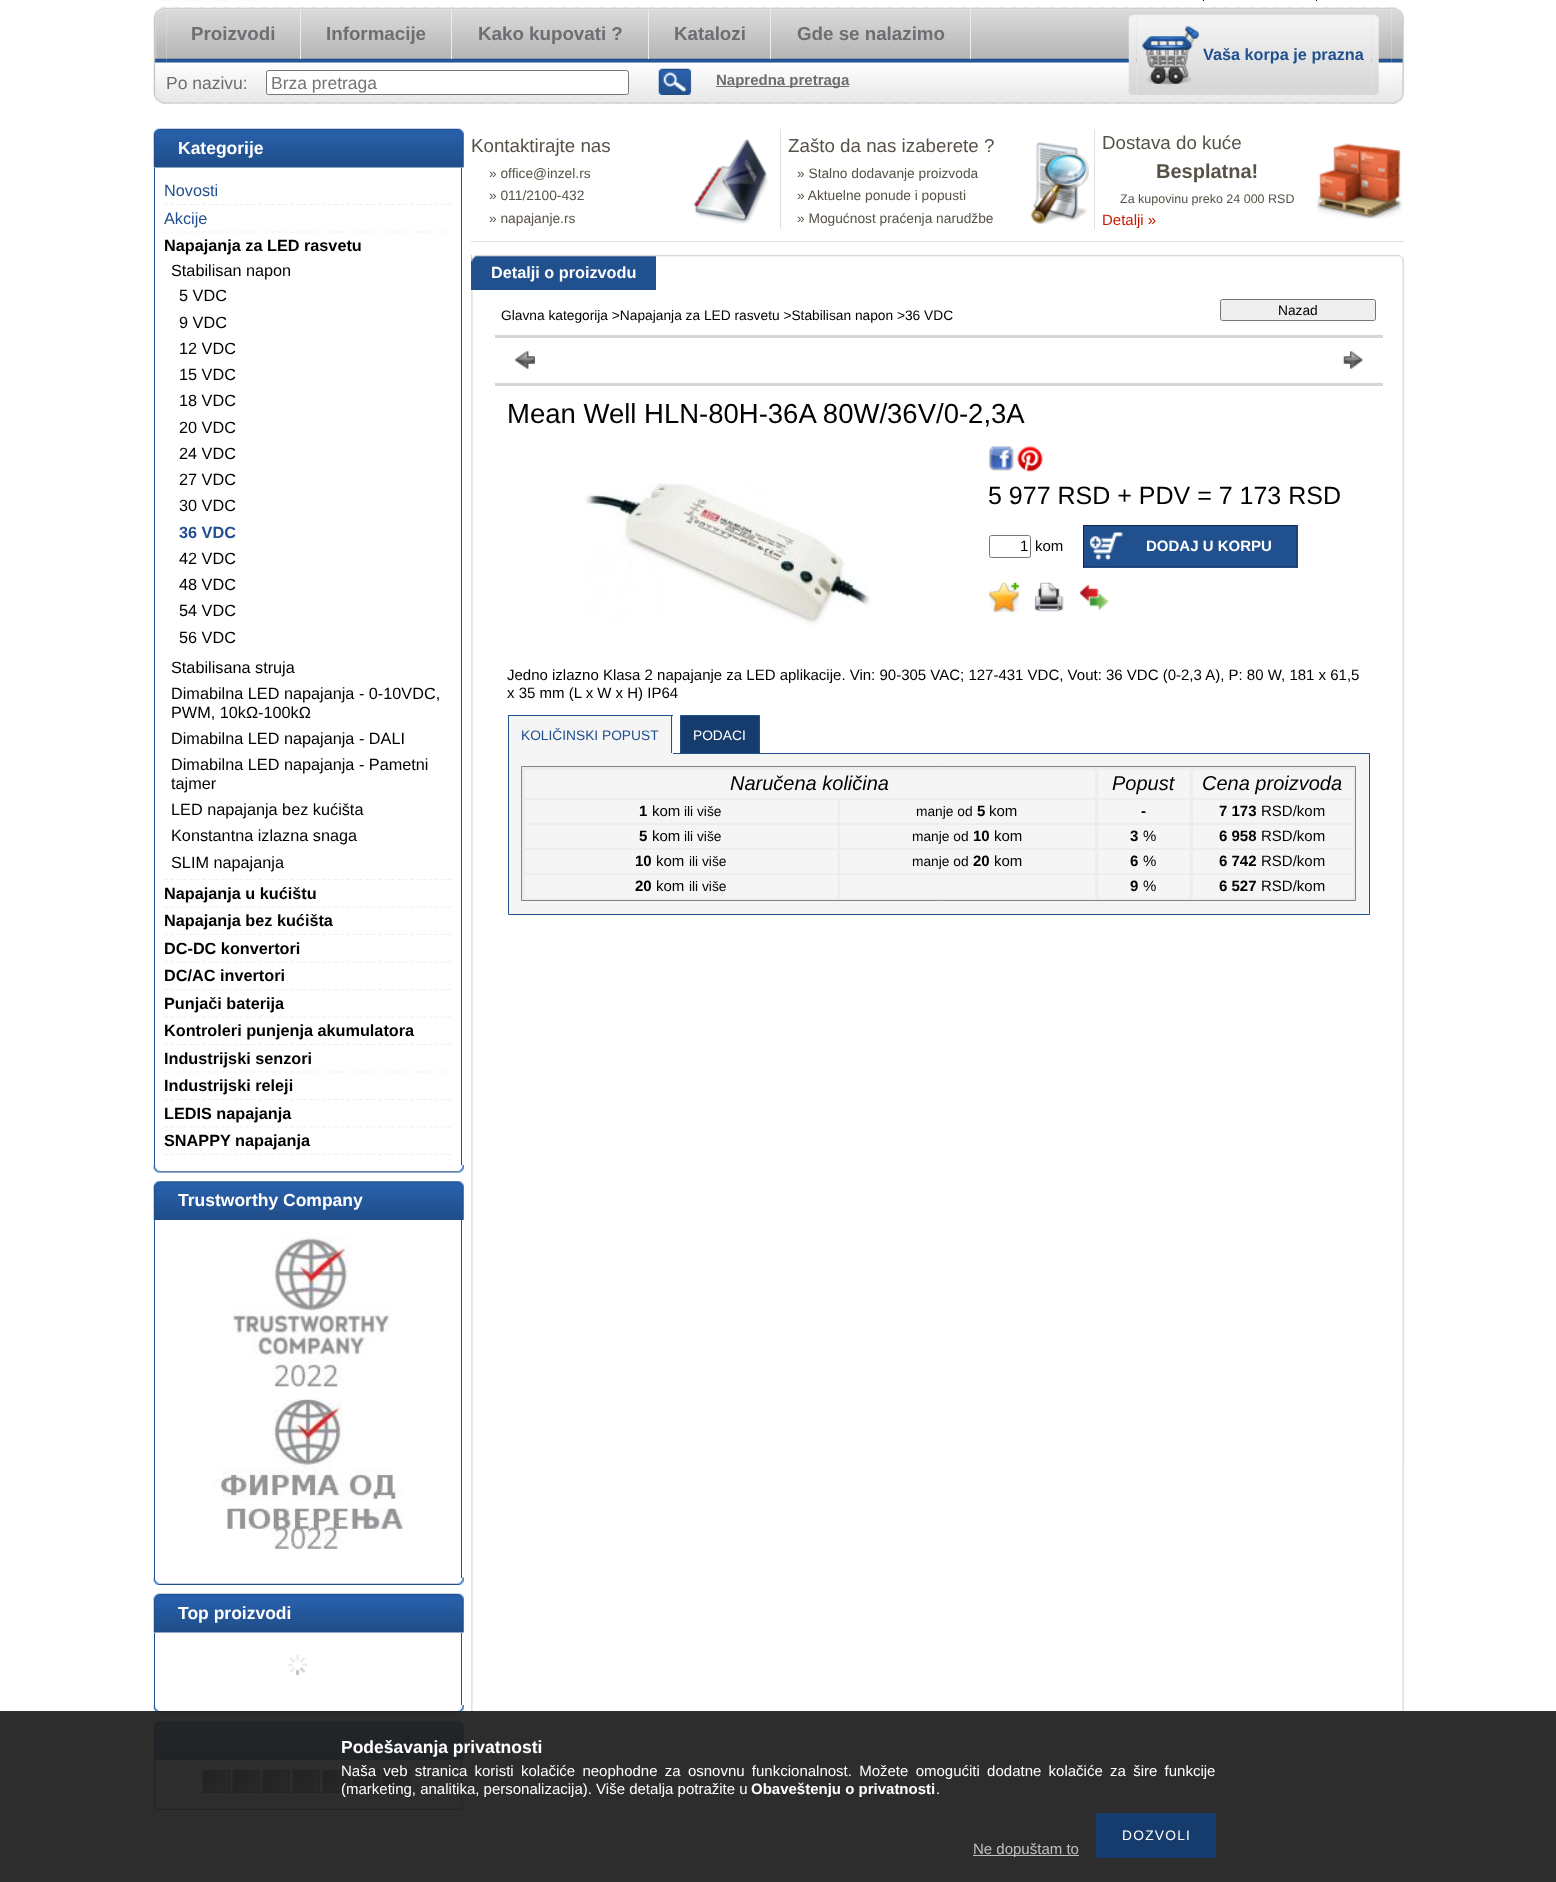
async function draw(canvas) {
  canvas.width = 1556
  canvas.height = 1882
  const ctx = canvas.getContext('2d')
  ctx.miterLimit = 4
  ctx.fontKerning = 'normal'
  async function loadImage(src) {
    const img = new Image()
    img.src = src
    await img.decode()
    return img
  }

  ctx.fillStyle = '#fff'
  ctx.fillRect(0, 0, 1556, 1882)
  ctx.drawImage(await loadImage('image0.png'), 160, 0, 96, 1)
  ctx.fillStyle = '#000'
  ctx.fillRect(1203, 0, 1, 1)
  ctx.fillRect(1316, 0, 1, 1)
  ctx.drawImage(await loadImage('image1.png'), 153, 7, 14, 97)
  ctx.drawImage(await loadImage('image2.png'), 166, 7, 1226, 97)
  ctx.fillStyle = '#ececec'
  ctx.fillRect(300, 9, 1, 50)
  ctx.font = 'bold 18.75px Liberation Sans'
  ctx.fillStyle = '#6c6e71'
  ctx.fillText('Proizvodi', 191, 40)
  ctx.fillStyle = '#ececec'
  ctx.fillRect(451, 9, 1, 50)
  ctx.fillStyle = '#6c6e71'
  ctx.fillText('Informacije', 326, 40)
  ctx.fillStyle = '#ececec'
  ctx.fillRect(648, 9, 1, 50)
  ctx.fillStyle = '#6c6e71'
  ctx.fillText('Kako kupovati ?', 478, 40)
  ctx.fillStyle = '#ececec'
  ctx.fillRect(770, 9, 1, 50)
  ctx.fillStyle = '#6c6e71'
  ctx.fillText('Katalozi', 674, 40)
  ctx.fillStyle = '#ececec'
  ctx.fillRect(970, 9, 1, 50)
  ctx.fillStyle = '#6c6e71'
  ctx.fillText('Gde se nalazimo', 797, 40)
  ctx.font = '17.5px Liberation Sans'
  ctx.fillText('Po nazivu:', 166, 89)
  ctx.fillStyle = '#fff'
  ctx.beginPath()
  ctx.roundRect(266.5, 70.5, 362, 24, 2)
  ctx.fill()
  ctx.strokeStyle = '#767676'
  ctx.stroke()
  ctx.fillStyle = '#757575'
  ctx.fillText('Brza pretraga', 271, 89)
  ctx.drawImage(await loadImage('image3.png'), 658, 68, 34, 27)
  ctx.fillStyle = '#6c6e71'
  ctx.fillRect(716, 86, 133, 1)
  ctx.font = 'bold 15px Liberation Sans'
  ctx.fillText('Napredna pretraga', 716, 85)
  ctx.drawImage(await loadImage('image4.png'), 1128, 14, 9, 81)
  ctx.drawImage(await loadImage('image5.png'), 1136, 14, 236, 81)
  ctx.drawImage(await loadImage('image6.png'), 1142, 26, 57, 59)
  ctx.font = 'bold 16.25px Liberation Sans'
  ctx.fillStyle = '#21508f'
  ctx.fillText('Vaša korpa je prazna', 1203, 60)
  ctx.drawImage(await loadImage('image7.png'), 1371, 14, 8, 81)
  ctx.drawImage(await loadImage('image8.png'), 1391, 7, 13, 97)
  ctx.drawImage(await loadImage('image9.png'), 471, 128, 933, 1691)
  ctx.drawImage(await loadImage('image10.png'), 471, 1812, 933, 7)
  ctx.drawImage(await loadImage('image11.png'), 153, 128, 311, 40)
  ctx.font = 'bold 17.5px Liberation Sans'
  ctx.fillStyle = '#fff'
  ctx.fillText('Kategorije', 178, 154)
  ctx.fillStyle = '#204f8c'
  ctx.fillRect(461, 168, 1, 997)
  ctx.fillRect(154, 168, 1, 997)
  ctx.beginPath()
  ctx.moveTo(164, 204.5)
  ctx.lineTo(451, 204.5)
  ctx.strokeStyle = '#efefef'
  ctx.lineWidth = 1.2
  ctx.setLineDash([3.75, 2.55])
  ctx.stroke()
  ctx.font = '16.25px Liberation Sans'
  ctx.fillStyle = '#21508f'
  ctx.fillText('Novosti', 164, 196)
  ctx.beginPath()
  ctx.moveTo(164, 232)
  ctx.lineTo(451, 232)
  ctx.stroke()
  ctx.fillText('Akcije', 164, 224)
  ctx.beginPath()
  ctx.moveTo(164, 879.5)
  ctx.lineTo(451, 879.5)
  ctx.stroke()
  ctx.font = 'bold 16.25px Liberation Sans'
  ctx.fillStyle = '#000'
  ctx.fillText('Napajanja za LED rasvetu', 164, 251)
  ctx.font = '16.25px Liberation Sans'
  ctx.fillText('Stabilisan napon', 171, 276)
  ctx.fillText('5 VDC', 179, 301)
  ctx.fillText('9 VDC', 179, 328)
  ctx.fillText('12 VDC', 179, 354)
  ctx.fillText('15 VDC', 179, 380)
  ctx.fillText('18 VDC', 179, 406)
  ctx.fillText('20 VDC', 179, 433)
  ctx.fillText('24 VDC', 179, 459)
  ctx.fillText('27 VDC', 179, 485)
  ctx.fillText('30 VDC', 179, 511)
  ctx.font = 'bold 16.25px Liberation Sans'
  ctx.fillStyle = '#21508f'
  ctx.fillText('36 VDC', 179, 538)
  ctx.font = '16.25px Liberation Sans'
  ctx.fillStyle = '#000'
  ctx.fillText('42 VDC', 179, 564)
  ctx.fillText('48 VDC', 179, 590)
  ctx.fillText('54 VDC', 179, 616)
  ctx.fillText('56 VDC', 179, 643)
  ctx.fillText('Stabilisana struja', 171, 673)
  ctx.fillText('Dimabilna LED napajanja - 0-10VDC,', 171, 699)
  ctx.fillText('PWM, 10kΩ-100kΩ', 171, 718)
  ctx.fillText('Dimabilna LED napajanja - DALI', 171, 744)
  ctx.fillText('Dimabilna LED napajanja - Pametni', 171, 770)
  ctx.fillText('tajmer', 171, 789)
  ctx.fillText('LED napajanja bez kućišta', 171, 815)
  ctx.fillText('Konstantna izlazna snaga', 171, 841)
  ctx.fillText('SLIM napajanja', 171, 868)
  ctx.beginPath()
  ctx.moveTo(164, 907)
  ctx.lineTo(451, 907)
  ctx.stroke()
  ctx.font = 'bold 16.25px Liberation Sans'
  ctx.fillText('Napajanja u kućištu', 164, 899)
  ctx.beginPath()
  ctx.moveTo(164, 934.5)
  ctx.lineTo(451, 934.5)
  ctx.stroke()
  ctx.fillText('Napajanja bez kućišta', 164, 926)
  ctx.beginPath()
  ctx.moveTo(164, 962)
  ctx.lineTo(451, 962)
  ctx.stroke()
  ctx.fillText('DC-DC konvertori', 164, 954)
  ctx.beginPath()
  ctx.moveTo(164, 989.5)
  ctx.lineTo(451, 989.5)
  ctx.stroke()
  ctx.fillText('DC/AC invertori', 164, 981)
  ctx.beginPath()
  ctx.moveTo(164, 1017)
  ctx.lineTo(451, 1017)
  ctx.stroke()
  ctx.fillText('Punjači baterija', 164, 1009)
  ctx.beginPath()
  ctx.moveTo(164, 1044.5)
  ctx.lineTo(451, 1044.5)
  ctx.stroke()
  ctx.fillText('Kontroleri punjenja akumulatora', 164, 1036)
  ctx.beginPath()
  ctx.moveTo(164, 1072)
  ctx.lineTo(451, 1072)
  ctx.stroke()
  ctx.fillText('Industrijski senzori', 164, 1064)
  ctx.beginPath()
  ctx.moveTo(164, 1099.5)
  ctx.lineTo(451, 1099.5)
  ctx.stroke()
  ctx.fillText('Industrijski releji', 164, 1091)
  ctx.beginPath()
  ctx.moveTo(164, 1127)
  ctx.lineTo(451, 1127)
  ctx.stroke()
  ctx.fillText('LEDIS napajanja', 164, 1119)
  ctx.save()
  ctx.beginPath()
  ctx.rect(164, 178, 287, 977)
  ctx.clip()
  ctx.beginPath()
  ctx.moveTo(164, 1154.5)
  ctx.lineTo(451, 1154.5)
  ctx.stroke()
  ctx.restore()
  ctx.fillText('SNAPPY napajanja', 164, 1146)
  ctx.drawImage(await loadImage('image12.png'), 153, 1165, 311, 8)
  ctx.drawImage(await loadImage('image13.png'), 153, 1181, 311, 39)
  ctx.font = 'bold 17.5px Liberation Sans'
  ctx.fillStyle = '#fff'
  ctx.fillText('Trustworthy Company', 178, 1206)
  ctx.drawImage(await loadImage('image16.png'), 153, 1577, 311, 8)
  ctx.fillStyle = '#204f8c'
  ctx.fillRect(461, 1220, 1, 358)
  ctx.fillRect(154, 1220, 1, 358)
  ctx.drawImage(await loadImage('image14.png'), 232, 1236, 159, 151)
  ctx.drawImage(await loadImage('image15.png'), 213, 1398, 190, 151)
  ctx.drawImage(await loadImage('image11.png'), 153, 1593, 311, 40)
  ctx.fillStyle = '#fff'
  ctx.fillText('Top proizvodi', 178, 1619)
  ctx.fillStyle = '#204f8c'
  ctx.fillRect(461, 1633, 1, 72)
  ctx.fillRect(154, 1633, 1, 72)
  ctx.drawImage(await loadImage('image17.png'), 287, 1655, 21, 20)
  ctx.drawImage(await loadImage('image12.png'), 153, 1705, 311, 8)
  ctx.drawImage(await loadImage('image13.png'), 153, 1721, 311, 39)
  ctx.drawImage(await loadImage('image16.png'), 153, 1802, 311, 8)
  ctx.fillRect(461, 1760, 1, 43)
  ctx.fillRect(154, 1760, 1, 43)
  ctx.fillStyle = '#214d85'
  ctx.fillRect(203, 1792, 27, 1)
  ctx.drawImage(await loadImage('image18.png'), 202, 1770, 28, 23)
  ctx.fillRect(233, 1792, 27, 1)
  ctx.drawImage(await loadImage('image18.png'), 232, 1770, 28, 23)
  ctx.fillRect(263, 1792, 27, 1)
  ctx.drawImage(await loadImage('image19.png'), 262, 1770, 28, 23)
  ctx.fillRect(293, 1792, 27, 1)
  ctx.drawImage(await loadImage('image20.png'), 292, 1770, 28, 23)
  ctx.fillRect(323, 1792, 27, 1)
  ctx.drawImage(await loadImage('image18.png'), 322, 1770, 28, 23)
  ctx.fillRect(353, 1792, 27, 1)
  ctx.drawImage(await loadImage('image20.png'), 352, 1770, 28, 23)
  ctx.fillRect(383, 1792, 27, 1)
  ctx.drawImage(await loadImage('image20.png'), 382, 1770, 28, 23)
  ctx.fillStyle = '#fff'
  ctx.fillRect(471, 129, 933, 126)
  ctx.fillStyle = '#e0e0e0'
  ctx.fillRect(471, 241, 933, 1)
  ctx.font = '18.75px Liberation Sans'
  ctx.fillStyle = '#565247'
  ctx.fillText('Kontaktirajte nas', 471, 152)
  ctx.font = '13.75px Liberation Sans'
  ctx.fillText('» office@inzel.rs', 489, 178)
  ctx.fillText('» 011/2100-432', 489, 200)
  ctx.fillText('» napajanje.rs', 489, 223)
  ctx.drawImage(await loadImage('image21.png'), 693, 138, 75, 86)
  ctx.fillStyle = '#e0e0e0'
  ctx.fillRect(780, 129, 1, 100)
  ctx.font = '18.75px Liberation Sans'
  ctx.fillStyle = '#565247'
  ctx.fillText('Zašto da nas izaberete ?', 788, 152)
  ctx.font = '13.75px Liberation Sans'
  ctx.fillText('» Stalno dodavanje proizvoda', 797, 178)
  ctx.fillText('» Aktuelne ponude i popusti', 797, 200)
  ctx.fillText('» Mogućnost praćenja narudžbe', 797, 223)
  ctx.drawImage(await loadImage('image22.png'), 1031, 142, 58, 82)
  ctx.fillStyle = '#e0e0e0'
  ctx.fillRect(1094, 129, 1, 100)
  ctx.font = '18.75px Liberation Sans'
  ctx.fillStyle = '#565247'
  ctx.fillText('Dostava do kuće', 1102, 149)
  ctx.font = 'bold 20px Liberation Sans'
  ctx.fillText('Besplatna!', 1156, 178)
  ctx.font = '12.5px Liberation Sans'
  ctx.fillText('Za kupovinu preko 24 000 RSD', 1120, 203)
  ctx.font = '15px Liberation Sans'
  ctx.fillStyle = '#c61a02'
  ctx.fillText('Detalji »', 1102, 225)
  ctx.drawImage(await loadImage('image23.png'), 1316, 143, 86, 76)
  ctx.fillStyle = '#21508f'
  ctx.fillRect(471, 255, 185, 35)
  ctx.drawImage(await loadImage('image24.png'), 471, 255, 933, 7)
  ctx.font = 'bold 16.25px Liberation Sans'
  ctx.fillStyle = '#fff'
  ctx.fillText('Detalji o proizvodu', 491, 278)
  ctx.font = '13.75px Liberation Sans'
  ctx.fillStyle = '#000'
  ctx.fillText('Glavna kategorija >Napajanja za LED rasvetu >Stabilisan napon >36 VDC', 501, 320)
  ctx.fillStyle = '#efefef'
  ctx.beginPath()
  ctx.roundRect(1220.5, 299.5, 155, 21, 2)
  ctx.fill()
  ctx.strokeStyle = '#767676'
  ctx.lineWidth = 1
  ctx.setLineDash([])
  ctx.stroke()
  ctx.fillStyle = '#000'
  ctx.fillText('Nazad', 1278, 315)
  ctx.fillStyle = '#d6d6d6'
  ctx.fillRect(495, 335, 888, 3)
  ctx.drawImage(await loadImage('image25.png'), 514, 351, 21, 18)
  ctx.drawImage(await loadImage('image26.png'), 1343, 351, 20, 18)
  ctx.fillRect(495, 383, 888, 3)
  ctx.font = '27.5px Liberation Sans'
  ctx.fillStyle = '#000'
  ctx.fillText('Mean Well HLN-80H-36A 80W/36V/0-2,3A', 507, 423)
  ctx.drawImage(await loadImage('image27.png'), 584, 483, 287, 143)
  ctx.drawImage(await loadImage('image28.png'), 989, 446, 25, 25)
  ctx.drawImage(await loadImage('image29.png'), 1017, 446, 26, 26)
  ctx.font = '25px Liberation Sans'
  ctx.fillText('5 977 RSD + PDV = 7 173 RSD', 988, 504)
  ctx.beginPath()
  ctx.roundRect(989.5, 535.5, 41, 22, 2)
  ctx.stroke()
  ctx.font = '15px Liberation Sans'
  ctx.fillText('1', 1020, 551)
  ctx.fillText('kom', 1035, 551)
  ctx.fillStyle = '#21508f'
  ctx.fillRect(1084, 526, 214, 42)
  ctx.drawImage(await loadImage('image30.png'), 1089, 532, 34, 29)
  ctx.fillStyle = '#0c284e'
  ctx.fillRect(1083, 525, 215, 1)
  ctx.fillStyle = '#1e3d66'
  ctx.fillRect(1296, 525, 1, 43)
  ctx.fillRect(1083, 566, 215, 1)
  ctx.fillStyle = '#0c284e'
  ctx.fillRect(1083, 525, 1, 43)
  ctx.font = 'bold 15px Liberation Sans'
  ctx.fillStyle = '#fff'
  ctx.fillText('DODAJ U KORPU', 1146, 551)
  ctx.drawImage(await loadImage('image31.png'), 989, 582, 30, 31)
  ctx.drawImage(await loadImage('image32.png'), 1034, 582, 30, 30)
  ctx.drawImage(await loadImage('image33.png'), 1079, 584, 30, 27)
  ctx.font = '15px Liberation Sans'
  ctx.fillStyle = '#000'
  ctx.fillText('Jedno izlazno Klasa 2 napajanje za LED aplikacije. Vin: 90-305 VAC; 127-431 VDC, Vout: 36 VDC (0-2,3 A), P: 80 W, 181 x 61,5', 507, 680)
  ctx.fillText('x 35 mm (L x W x H) IP64', 507, 698)
  ctx.fillStyle = '#f5f5f5'
  ctx.fillRect(509, 716, 164, 37)
  ctx.fillStyle = '#21508f'
  ctx.fillRect(508, 715, 165, 1)
  ctx.fillStyle = '#f5f5f5'
  ctx.beginPath()
  ctx.rect(508.5, 753.5, 861, 161)
  ctx.fill()
  ctx.strokeStyle = '#21508f'
  ctx.stroke()
  ctx.fillStyle = '#21508f'
  ctx.fillRect(671, 715, 1, 39)
  ctx.fillStyle = '#f5f5f5'
  ctx.fillRect(508, 753, 165, 1)
  ctx.fillStyle = '#21508f'
  ctx.fillRect(508, 715, 1, 39)
  ctx.font = '13.75px Liberation Sans'
  ctx.fillText('KOLIČINSKI POPUST', 521, 740)
  ctx.fillStyle = '#163c6d'
  ctx.beginPath()
  ctx.rect(680.5, 715.5, 79, 38)
  ctx.fill()
  ctx.stroke()
  ctx.fillStyle = '#fff'
  ctx.fillText('PODACI', 693, 740)
  ctx.fillStyle = '#ededed'
  ctx.beginPath()
  ctx.rect(521.5, 766.5, 834, 134)
  ctx.fill()
  ctx.strokeStyle = '#838383'
  ctx.stroke()
  ctx.fillStyle = '#f5f5f5'
  ctx.fillRect(525, 770, 570, 28)
  ctx.font = 'italic 20px Liberation Sans'
  ctx.fillStyle = '#000'
  ctx.fillText('Naručena količina', 730, 790)
  ctx.fillStyle = '#f5f5f5'
  ctx.fillRect(1098, 770, 92, 28)
  ctx.fillStyle = '#000'
  ctx.fillText('Popust', 1112, 790)
  ctx.fillStyle = '#f5f5f5'
  ctx.fillRect(1193, 770, 160, 28)
  ctx.fillStyle = '#000'
  ctx.fillText('Cena proizvoda', 1202, 790)
  ctx.fillStyle = '#f5f5f5'
  ctx.fillRect(525, 800, 313, 23)
  ctx.font = 'bold 15px Liberation Sans'
  ctx.fillStyle = '#000'
  ctx.fillText('1', 639, 816)
  ctx.font = '15px Liberation Sans'
  ctx.fillText('kom', 652, 816)
  ctx.font = '13.75px Liberation Sans'
  ctx.fillText('ili više', 684, 816)
  ctx.fillStyle = '#f5f5f5'
  ctx.fillRect(840, 800, 255, 23)
  ctx.fillStyle = '#000'
  ctx.fillText('manje od', 916, 816)
  ctx.font = 'bold 15px Liberation Sans'
  ctx.fillText('5', 977, 816)
  ctx.font = '15px Liberation Sans'
  ctx.fillText('kom', 989, 816)
  ctx.fillStyle = '#f5f5f5'
  ctx.fillRect(1098, 800, 92, 23)
  ctx.font = 'bold 15px Liberation Sans'
  ctx.fillStyle = '#000'
  ctx.fillText('-', 1141, 816)
  ctx.fillStyle = '#f5f5f5'
  ctx.fillRect(1193, 800, 160, 23)
  ctx.fillStyle = '#000'
  ctx.fillText('7 173', 1219, 816)
  ctx.font = '15px Liberation Sans'
  ctx.fillText('RSD/kom', 1261, 816)
  ctx.fillStyle = '#f5f5f5'
  ctx.fillRect(525, 825, 313, 23)
  ctx.font = 'bold 15px Liberation Sans'
  ctx.fillStyle = '#000'
  ctx.fillText('5', 639, 841)
  ctx.font = '15px Liberation Sans'
  ctx.fillText('kom', 652, 841)
  ctx.font = '13.75px Liberation Sans'
  ctx.fillText('ili više', 684, 841)
  ctx.fillStyle = '#f5f5f5'
  ctx.fillRect(840, 825, 255, 23)
  ctx.fillStyle = '#000'
  ctx.fillText('manje od', 912, 841)
  ctx.font = 'bold 15px Liberation Sans'
  ctx.fillText('10', 973, 841)
  ctx.font = '15px Liberation Sans'
  ctx.fillText('kom', 994, 841)
  ctx.fillStyle = '#f5f5f5'
  ctx.fillRect(1098, 825, 92, 23)
  ctx.font = 'bold 15px Liberation Sans'
  ctx.fillStyle = '#000'
  ctx.fillText('3', 1130, 841)
  ctx.font = '15px Liberation Sans'
  ctx.fillText('%', 1143, 841)
  ctx.fillStyle = '#f5f5f5'
  ctx.fillRect(1193, 825, 160, 23)
  ctx.font = 'bold 15px Liberation Sans'
  ctx.fillStyle = '#000'
  ctx.fillText('6 958', 1219, 841)
  ctx.font = '15px Liberation Sans'
  ctx.fillText('RSD/kom', 1261, 841)
  ctx.fillStyle = '#f5f5f5'
  ctx.fillRect(525, 850, 313, 23)
  ctx.font = 'bold 15px Liberation Sans'
  ctx.fillStyle = '#000'
  ctx.fillText('10', 635, 866)
  ctx.font = '15px Liberation Sans'
  ctx.fillText('kom', 656, 866)
  ctx.font = '13.75px Liberation Sans'
  ctx.fillText('ili više', 689, 866)
  ctx.fillStyle = '#f5f5f5'
  ctx.fillRect(840, 850, 255, 23)
  ctx.fillStyle = '#000'
  ctx.fillText('manje od', 912, 866)
  ctx.font = 'bold 15px Liberation Sans'
  ctx.fillText('20', 973, 866)
  ctx.font = '15px Liberation Sans'
  ctx.fillText('kom', 994, 866)
  ctx.fillStyle = '#f5f5f5'
  ctx.fillRect(1098, 850, 92, 23)
  ctx.font = 'bold 15px Liberation Sans'
  ctx.fillStyle = '#000'
  ctx.fillText('6', 1130, 866)
  ctx.font = '15px Liberation Sans'
  ctx.fillText('%', 1143, 866)
  ctx.fillStyle = '#f5f5f5'
  ctx.fillRect(1193, 850, 160, 23)
  ctx.font = 'bold 15px Liberation Sans'
  ctx.fillStyle = '#000'
  ctx.fillText('6 742', 1219, 866)
  ctx.font = '15px Liberation Sans'
  ctx.fillText('RSD/kom', 1261, 866)
  ctx.fillStyle = '#f5f5f5'
  ctx.fillRect(525, 875, 313, 23)
  ctx.font = 'bold 15px Liberation Sans'
  ctx.fillStyle = '#000'
  ctx.fillText('20', 635, 891)
  ctx.font = '15px Liberation Sans'
  ctx.fillText('kom', 656, 891)
  ctx.font = '13.75px Liberation Sans'
  ctx.fillText('ili više', 689, 891)
  ctx.fillStyle = '#f5f5f5'
  ctx.fillRect(840, 875, 255, 23)
  ctx.fillRect(1098, 875, 92, 23)
  ctx.font = 'bold 15px Liberation Sans'
  ctx.fillStyle = '#000'
  ctx.fillText('9', 1130, 891)
  ctx.font = '15px Liberation Sans'
  ctx.fillText('%', 1143, 891)
  ctx.fillStyle = '#f5f5f5'
  ctx.fillRect(1193, 875, 160, 23)
  ctx.font = 'bold 15px Liberation Sans'
  ctx.fillStyle = '#000'
  ctx.fillText('6 527', 1219, 891)
  ctx.font = '15px Liberation Sans'
  ctx.fillText('RSD/kom', 1261, 891)
  ctx.fillStyle = '#d6d6d6'
  ctx.fillRect(154, 1850, 1250, 1)
  ctx.fillStyle = '#222222f2'
  ctx.fillRect(0, 1711, 1556, 171)
  ctx.font = 'bold 17.5px Liberation Sans'
  ctx.fillStyle = '#fff'
  ctx.fillText('Podešavanja privatnosti', 341, 1753)
  ctx.wordSpacing = '3.1px'
  ctx.font = '15px Liberation Sans'
  ctx.fillText('Naša veb stranica koristi kolačiće neophodne za osnovnu funkcionalnost. Možete omogućiti dodatne kolačiće za šire funkcije', 341, 1776)
  ctx.wordSpacing = '0px'
  ctx.fillText('(marketing, analitika, personalizacija). Više detalja potražite u', 341, 1794)
  ctx.font = 'bold 15px Liberation Sans'
  ctx.fillText('Obaveštenju o privatnosti', 751, 1794)
  ctx.font = '15px Liberation Sans'
  ctx.fillText('.', 936, 1794)
  ctx.fillStyle = '#163c6d'
  ctx.fillRect(1096, 1813, 120, 45)
  ctx.letterSpacing = '1.25px'
  ctx.font = '13.75px Liberation Sans'
  ctx.fillStyle = '#fff'
  ctx.fillText('DOZVOLI', 1122, 1840)
  ctx.fillStyle = '#c0c0c0'
  ctx.fillRect(973, 1855, 106, 1)
  ctx.letterSpacing = '0px'
  ctx.font = '15px Liberation Sans'
  ctx.fillText('Ne dopuštam to', 973, 1854)
}

draw(document.querySelector('canvas'))
